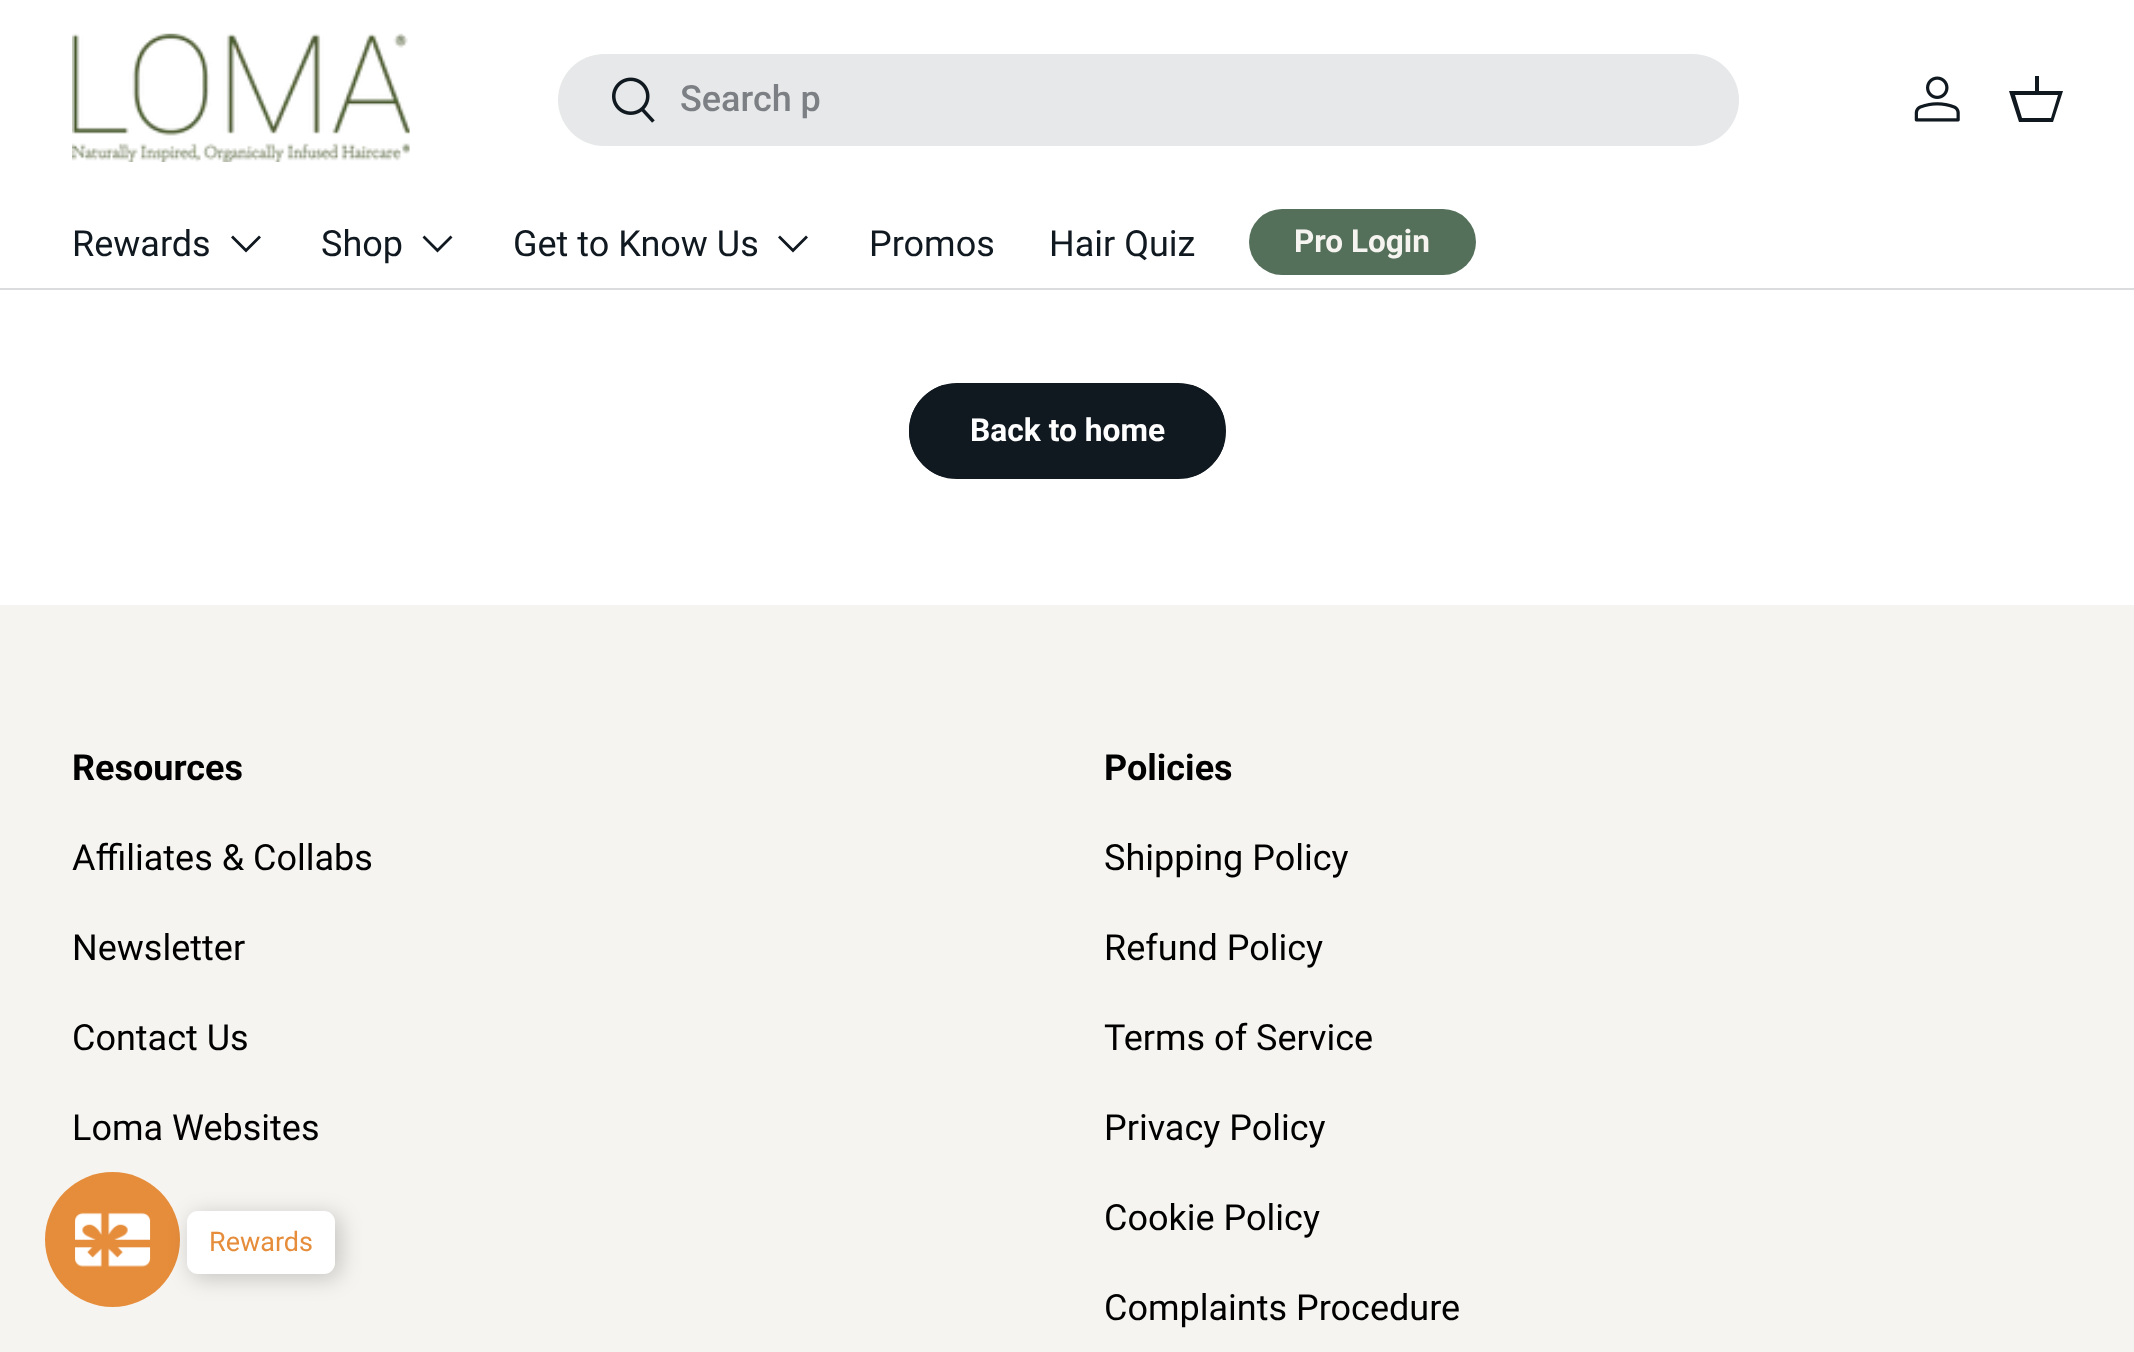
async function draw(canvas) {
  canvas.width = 2134
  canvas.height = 1352
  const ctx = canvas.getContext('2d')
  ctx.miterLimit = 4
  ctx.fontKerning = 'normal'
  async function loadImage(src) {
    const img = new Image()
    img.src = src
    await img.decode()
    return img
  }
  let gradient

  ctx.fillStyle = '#fff'
  ctx.fillRect(0, 0, 2134, 1352)
  ctx.fillStyle = '#dbdcde'
  ctx.fillRect(0, 288, 2134, 2)
  ctx.drawImage(await loadImage('image0.png'), 72, 33, 338, 129)
  ctx.fillStyle = '#e7e8e9'
  ctx.beginPath()
  ctx.roundRect(558, 54, 1181, 92, 46)
  ctx.fill()
  ctx.drawImage(await loadImage('image1.png'), 612, 77, 43, 46)
  ctx.font = '500 36px Roboto'
  ctx.fillStyle = '#7c8085'
  ctx.fillText('Search p', 680, 111)
  ctx.drawImage(await loadImage('image2.png'), 1914, 76, 46, 46)
  ctx.fillStyle = '#101820'
  ctx.beginPath()
  ctx.moveTo(2035, 91)
  ctx.lineTo(2035, 76)
  ctx.lineTo(2039, 76)
  ctx.lineTo(2039, 91)
  ctx.lineTo(2063, 91)
  ctx.lineTo(2053, 122)
  ctx.lineTo(2019, 122)
  ctx.lineTo(2009, 91)
  ctx.closePath()
  ctx.moveTo(2015, 95)
  ctx.lineTo(2022, 118)
  ctx.lineTo(2051, 118)
  ctx.lineTo(2058, 95)
  ctx.closePath()
  ctx.fill()
  ctx.font = '36px Roboto'
  ctx.fillText('Rewards', 72, 256)
  ctx.beginPath()
  ctx.moveTo(260, 236.5)
  ctx.lineTo(246, 250.5)
  ctx.lineTo(232, 236.5)
  ctx.strokeStyle = '#101820'
  ctx.lineWidth = 2.8
  ctx.stroke()
  ctx.fillText('Shop', 321, 256)
  ctx.beginPath()
  ctx.moveTo(451.5, 236.5)
  ctx.lineTo(437.5, 250.5)
  ctx.lineTo(423.5, 236.5)
  ctx.stroke()
  ctx.fillText('Get to Know Us', 513, 256)
  ctx.beginPath()
  ctx.moveTo(807, 236.5)
  ctx.lineTo(793, 250.5)
  ctx.lineTo(779, 236.5)
  ctx.stroke()
  ctx.fillText('Promos', 869, 256)
  ctx.fillText('Hair Quiz', 1049, 256)
  ctx.fillStyle = '#54705a'
  ctx.beginPath()
  ctx.roundRect(1249, 209, 227, 66, 33)
  ctx.fill()
  ctx.font = 'bold 31.5px Roboto'
  ctx.fillStyle = '#f6f4f0'
  ctx.fillText('Pro Login', 1294, 252)
  ctx.save()
  ctx.beginPath()
  ctx.roundRect(909, 383, 317, 96, 48)
  ctx.clip()
  gradient = ctx.createLinearGradient(302, 318, 1207, 544)
  gradient.addColorStop(0.6, '#3b434a')
  gradient.addColorStop(0.6, '#101820')
  gradient.addColorStop(1, '#101820')
  ctx.fillStyle = gradient
  ctx.fillRect(909, 385, 315, 92)
  ctx.restore()
  ctx.beginPath()
  ctx.roundRect(910, 384, 315, 94, 47)
  ctx.lineWidth = 2
  ctx.stroke()
  ctx.font = 'bold 31.75px Roboto'
  ctx.fillStyle = '#fff'
  ctx.fillText('Back to home', 970, 441)
  ctx.fillStyle = '#f6f4f0'
  ctx.fillRect(0, 605, 2134, 747)
  ctx.font = 'bold 36px Roboto'
  ctx.fillStyle = '#000'
  ctx.fillText('Resources', 72, 780)
  ctx.font = '36px Roboto'
  ctx.fillText('Affiliates & Collabs', 72, 870)
  ctx.fillText('Newsletter', 72, 960)
  ctx.fillText('Contact Us', 72, 1050)
  ctx.fillText('Loma Websites', 72, 1140)
  ctx.font = 'bold 36px Roboto'
  ctx.fillText('Policies', 1104, 780)
  ctx.font = '36px Roboto'
  ctx.fillText('Shipping Policy', 1104, 870)
  ctx.fillText('Refund Policy', 1104, 960)
  ctx.fillText('Terms of Service', 1104, 1050)
  ctx.fillText('Privacy Policy', 1104, 1140)
  ctx.fillText('Cookie Policy', 1104, 1230)
  ctx.fillText('Complaints Procedure', 1104, 1320)
  ctx.fillStyle = '#e68d3b'
  ctx.beginPath()
  ctx.arc(112.5, 1239.5, 67.5, 0, 2 * Math.PI)
  ctx.fill()
  ctx.drawImage(await loadImage('image3.png'), 75, 1212, 76, 55)
  ctx.fillStyle = '#00000033'
  ctx.filter = 'blur(11px)'
  ctx.beginPath()
  ctx.roundRect(191, 1215, 149, 63, 11)
  ctx.fill()
  ctx.filter = 'none'
  ctx.fillStyle = '#fff'
  ctx.beginPath()
  ctx.roundRect(187, 1211, 148, 63, 11)
  ctx.fill()
  ctx.font = '27px Roboto'
  ctx.fillStyle = '#e68d3b'
  ctx.fillText('Rewards', 209, 1251)
}

draw(document.querySelector('canvas'))
